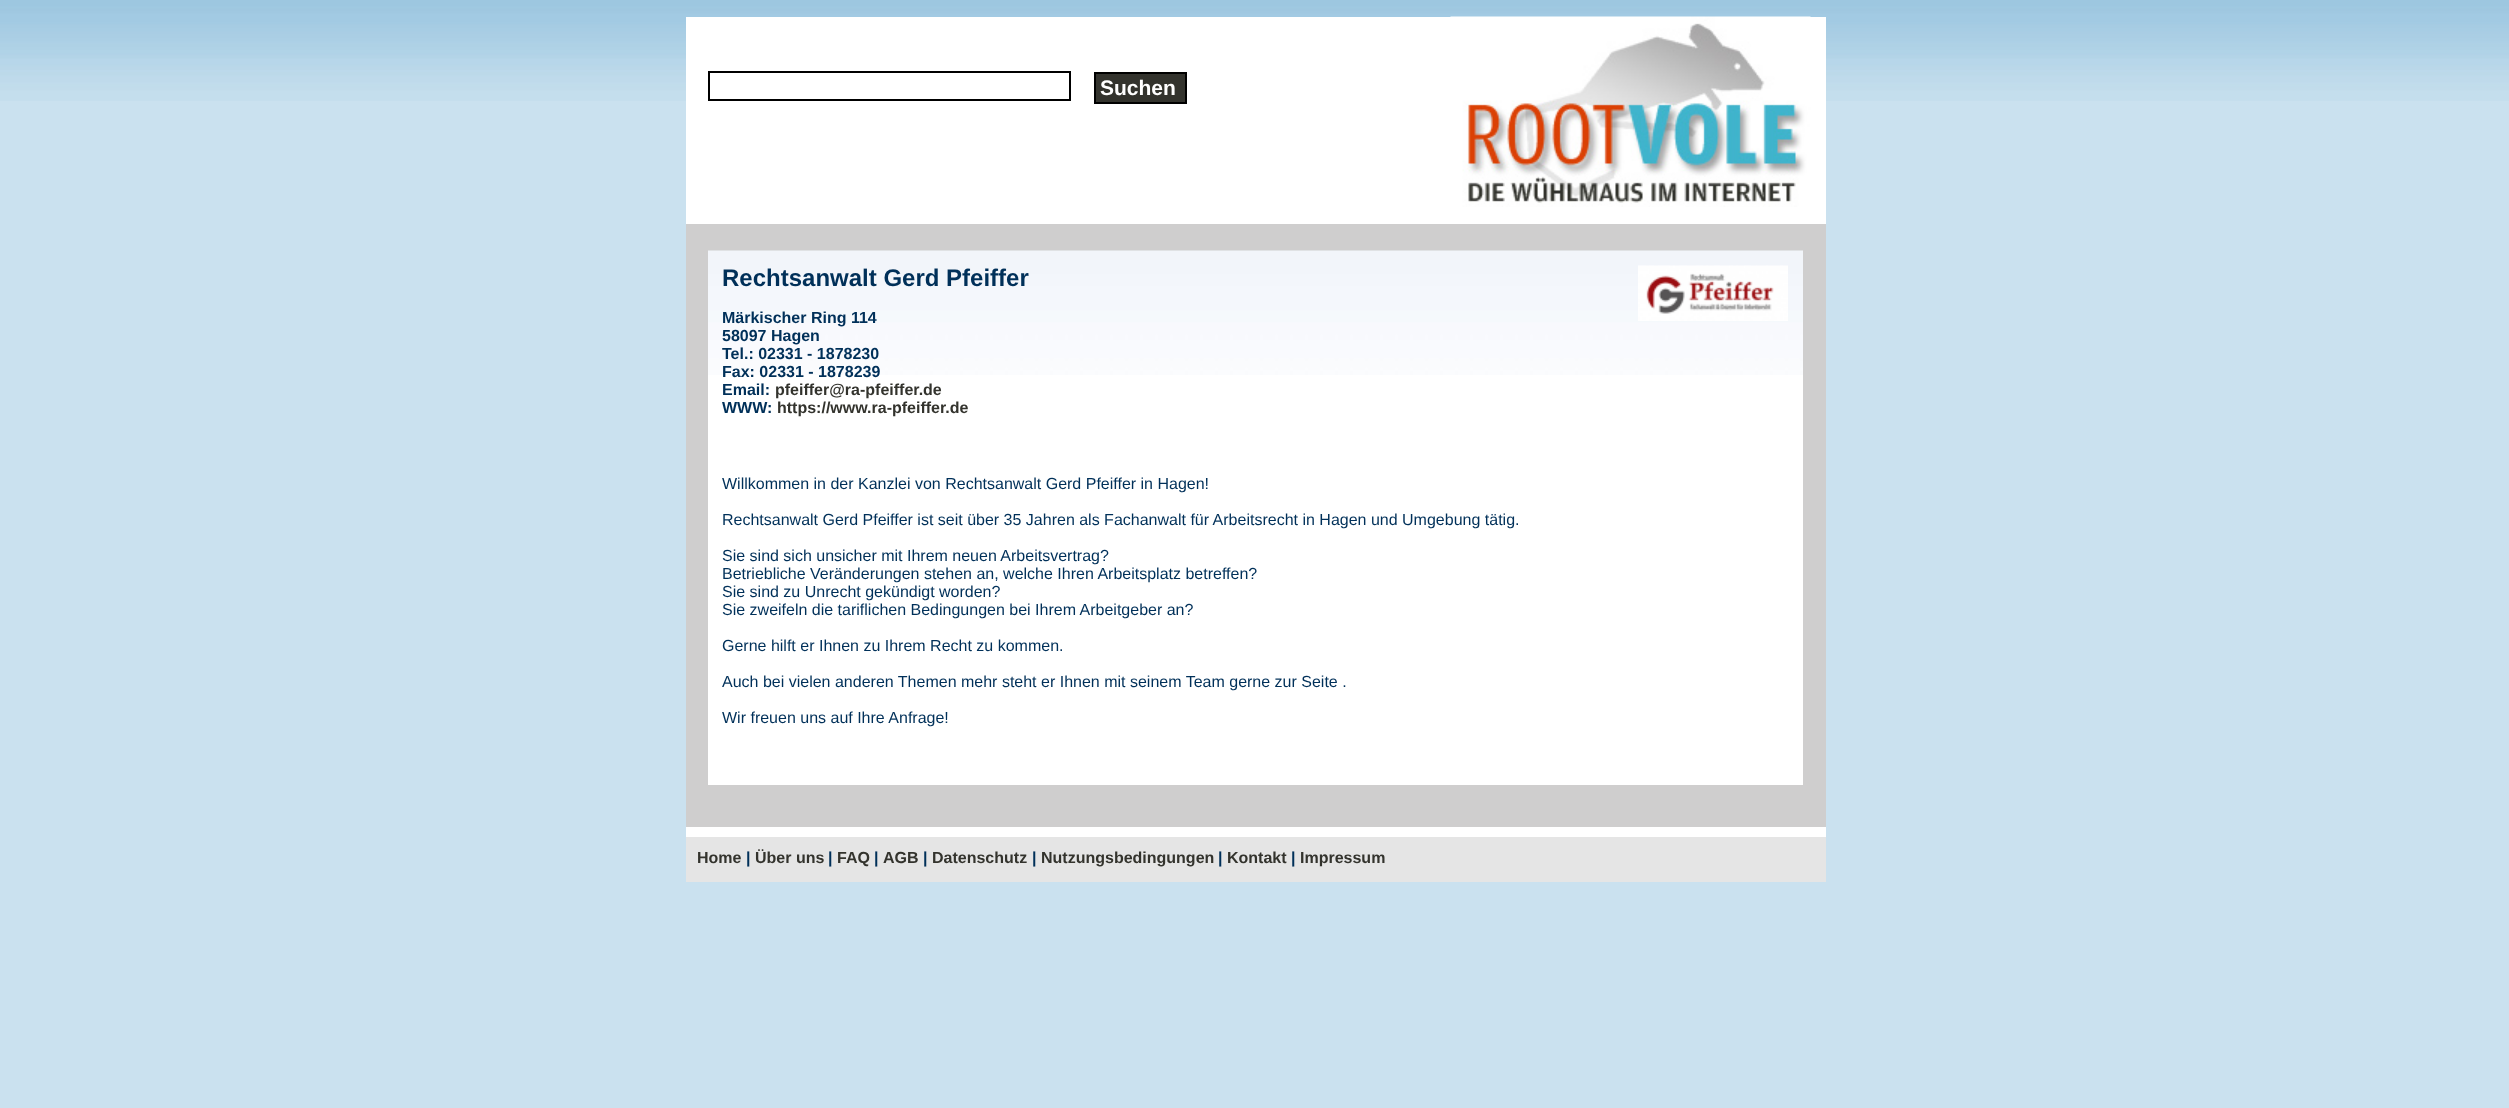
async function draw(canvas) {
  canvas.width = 2509
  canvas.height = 1108
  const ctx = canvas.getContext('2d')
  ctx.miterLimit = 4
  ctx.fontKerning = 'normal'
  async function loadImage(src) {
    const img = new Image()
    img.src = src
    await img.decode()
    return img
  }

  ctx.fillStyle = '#cae1ef'
  ctx.fillRect(0, 0, 2509, 1108)
  ctx.drawImage(await loadImage('image0.png'), 0, 0, 2509, 101)
  ctx.fillStyle = '#fff'
  ctx.fillRect(686, 17, 1140, 820)
  ctx.strokeStyle = '#000'
  ctx.lineWidth = 2
  ctx.strokeRect(709, 72, 361, 28)
  ctx.fillStyle = '#33332d'
  ctx.beginPath()
  ctx.rect(1095, 73, 91, 30)
  ctx.fill()
  ctx.stroke()
  ctx.font = 'bold 21px Liberation Sans'
  ctx.fillStyle = '#fff'
  ctx.fillText('Suchen', 1100, 95)
  ctx.drawImage(await loadImage('image1.png'), 1450, 16, 361, 191)
  ctx.fillStyle = '#cfcece'
  ctx.fillRect(686, 224, 1140, 603)
  ctx.fillStyle = '#fff'
  ctx.fillRect(708, 375, 1095, 410)
  ctx.drawImage(await loadImage('image2.png'), 708, 250, 1095, 125)
  ctx.font = 'bold 24px Liberation Sans'
  ctx.fillStyle = '#003059'
  ctx.fillText('Rechtsanwalt Gerd Pfeiffer', 722, 286)
  ctx.drawImage(await loadImage('image3.png'), 1638, 265, 150, 56)
  ctx.font = 'bold 16px Liberation Sans'
  ctx.fillText('Märkischer Ring 114', 722, 323)
  ctx.fillText('58097 Hagen', 722, 341)
  ctx.fillText('Tel.: 02331 - 1878230', 722, 359)
  ctx.fillText('Fax: 02331 - 1878239', 722, 377)
  ctx.fillText('Email:', 722, 395)
  ctx.fillStyle = '#33332d'
  ctx.fillText('pfeiffer@ra-pfeiffer.de', 775, 395)
  ctx.fillStyle = '#003059'
  ctx.fillText('WWW:', 722, 413)
  ctx.fillStyle = '#33332d'
  ctx.fillText('https://www.ra-pfeiffer.de', 777, 413)
  ctx.font = '16px Liberation Sans'
  ctx.fillStyle = '#003059'
  ctx.fillText('Willkommen in der Kanzlei von Rechtsanwalt Gerd Pfeiffer in Hagen!', 722, 489)
  ctx.fillText('Rechtsanwalt Gerd Pfeiffer ist seit über 35 Jahren als Fachanwalt für Arbeitsrecht in Hagen und Umgebung tätig.', 722, 525)
  ctx.fillText('Sie sind sich unsicher mit Ihrem neuen Arbeitsvertrag?', 722, 561)
  ctx.fillText('Betriebliche Veränderungen stehen an, welche Ihren Arbeitsplatz betreffen?', 722, 579)
  ctx.fillText('Sie sind zu Unrecht gekündigt worden?', 722, 597)
  ctx.fillText('Sie zweifeln die tariflichen Bedingungen bei Ihrem Arbeitgeber an?', 722, 615)
  ctx.fillText('Gerne hilft er Ihnen zu Ihrem Recht zu kommen.', 722, 651)
  ctx.fillText('Auch bei vielen anderen Themen mehr steht er Ihnen mit seinem Team gerne zur Seite .', 722, 687)
  ctx.fillText('Wir freuen uns auf Ihre Anfrage!', 722, 723)
  ctx.fillStyle = '#e5e5e5'
  ctx.fillRect(686, 837, 1140, 45)
  ctx.font = 'bold 16px Liberation Sans'
  ctx.fillStyle = '#33332d'
  ctx.fillText('Home', 697, 863)
  ctx.fillStyle = '#003059'
  ctx.fillText('|', 746, 863)
  ctx.fillStyle = '#33332d'
  ctx.fillText('Über uns', 755, 863)
  ctx.fillStyle = '#003059'
  ctx.fillText('|', 828, 863)
  ctx.fillStyle = '#33332d'
  ctx.fillText('FAQ', 837, 863)
  ctx.fillStyle = '#003059'
  ctx.fillText('|', 874, 863)
  ctx.fillStyle = '#33332d'
  ctx.fillText('AGB', 883, 863)
  ctx.fillStyle = '#003059'
  ctx.fillText('|', 923, 863)
  ctx.fillStyle = '#33332d'
  ctx.fillText('Datenschutz', 932, 863)
  ctx.fillStyle = '#003059'
  ctx.fillText('|', 1032, 863)
  ctx.fillStyle = '#33332d'
  ctx.fillText('Nutzungsbedingungen', 1041, 863)
  ctx.fillStyle = '#003059'
  ctx.fillText('|', 1218, 863)
  ctx.fillStyle = '#33332d'
  ctx.fillText('Kontakt', 1227, 863)
  ctx.fillStyle = '#003059'
  ctx.fillText('|', 1291, 863)
  ctx.fillStyle = '#33332d'
  ctx.fillText('Impressum', 1300, 863)
}

draw(document.querySelector('canvas'))
